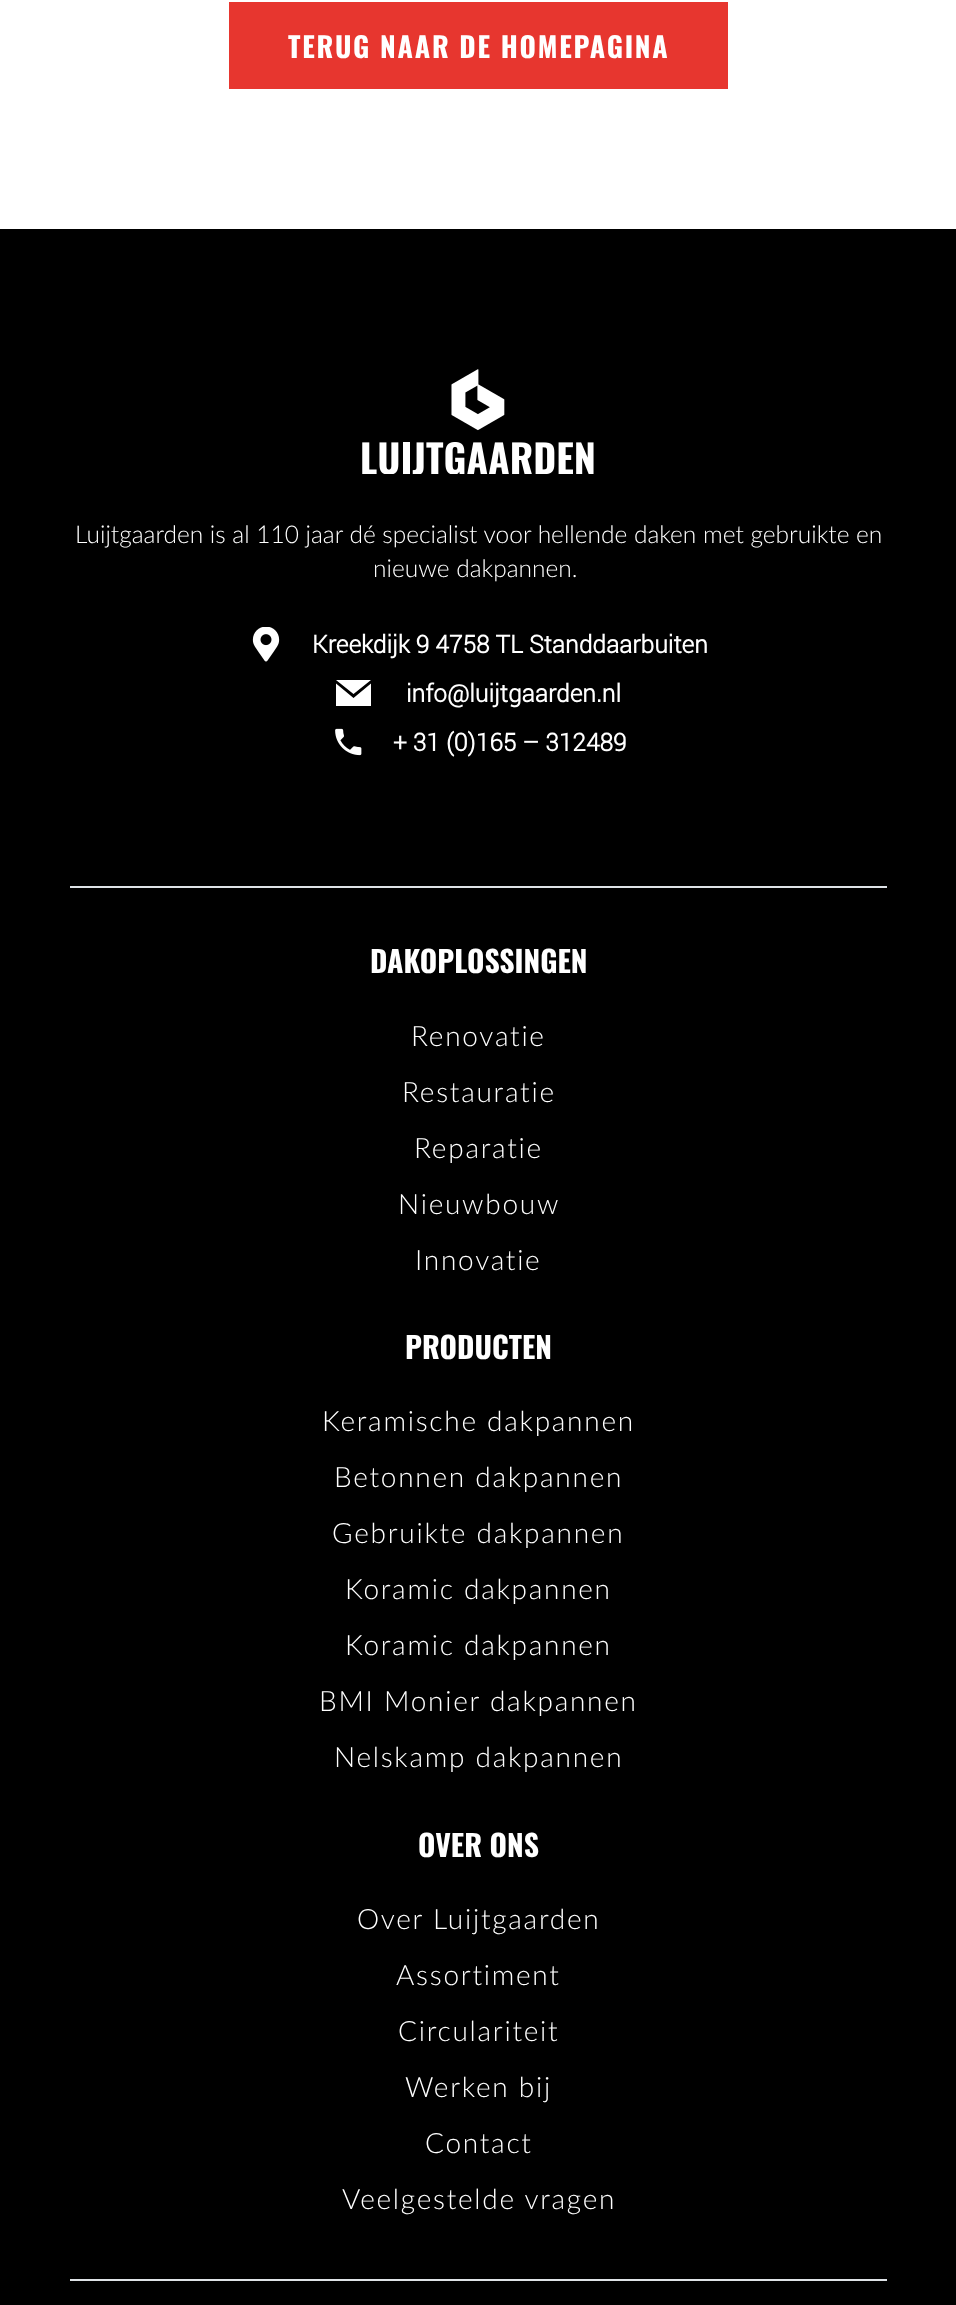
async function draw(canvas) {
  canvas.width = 956
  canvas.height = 2305
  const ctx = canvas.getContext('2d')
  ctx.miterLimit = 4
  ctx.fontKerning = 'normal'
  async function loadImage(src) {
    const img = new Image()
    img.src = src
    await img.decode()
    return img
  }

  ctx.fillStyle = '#fff'
  ctx.fillRect(0, 0, 956, 2305)
  ctx.fillStyle = '#e7362f'
  ctx.fillRect(229, 2, 499, 87)
  ctx.letterSpacing = '1.75px'
  ctx.font = 'bold 28px Oswald'
  ctx.fillStyle = '#fff'
  ctx.fillText('TERUG NAAR DE HOMEPAGINA', 288, 58)
  ctx.fillStyle = '#000'
  ctx.fillRect(0, 229, 956, 2076)
  ctx.drawImage(await loadImage('image0.png'), 362, 369, 232, 105)
  ctx.letterSpacing = '0px'
  ctx.font = '300 24.5px Lato'
  ctx.fillStyle = '#fff'
  ctx.fillText('Luijtgaarden is al 110 jaar dé specialist voor hellende daken met gebruikte en', 75, 543)
  ctx.fillText('nieuwe dakpannen.', 373, 577)
  ctx.drawImage(await loadImage('image1.png'), 252, 627, 28, 35)
  ctx.font = 'bold 24.5px Roboto'
  ctx.fillText('Kreekdijk 9 4758 TL Standdaarbuiten', 312, 653)
  ctx.beginPath()
  ctx.moveTo(353.5, 694)
  ctx.lineTo(336, 680)
  ctx.lineTo(371, 680)
  ctx.closePath()
  ctx.moveTo(353.5, 698)
  ctx.lineTo(336, 683.5)
  ctx.lineTo(336, 706)
  ctx.lineTo(371, 706)
  ctx.lineTo(371, 683.5)
  ctx.closePath()
  ctx.fill()
  ctx.fillText('info@luijtgaarden.nl', 406, 702)
  ctx.drawImage(await loadImage('image2.png'), 335, 728, 27, 28)
  ctx.fillText('+ 31 (0)165 – 312489', 393, 751)
  ctx.fillStyle = '#dee2e6'
  ctx.fillRect(70, 886, 817, 2)
  ctx.font = 'bold 29.75px Oswald'
  ctx.fillStyle = '#fff'
  ctx.fillText('DAKOPLOSSINGEN', 370, 973)
  ctx.letterSpacing = '1.75px'
  ctx.font = '300 28px Lato'
  ctx.fillText('Renovatie', 411, 1046)
  ctx.fillText('Restauratie', 402, 1102)
  ctx.fillText('Reparatie', 414, 1158)
  ctx.fillText('Nieuwbouw', 398, 1214)
  ctx.fillText('Innovatie', 415, 1270)
  ctx.letterSpacing = '0px'
  ctx.font = 'bold 29.75px Oswald'
  ctx.fillText('PRODUCTEN', 405, 1359)
  ctx.letterSpacing = '1.75px'
  ctx.font = '300 28px Lato'
  ctx.fillText('Keramische dakpannen', 322, 1431)
  ctx.fillText('Betonnen dakpannen', 334, 1487)
  ctx.fillText('Gebruikte dakpannen', 332, 1543)
  ctx.fillText('Koramic dakpannen', 345, 1599)
  ctx.fillText('Koramic dakpannen', 345, 1655)
  ctx.fillText('BMI Monier dakpannen', 319, 1711)
  ctx.fillText('Nelskamp dakpannen', 334, 1767)
  ctx.letterSpacing = '0px'
  ctx.font = 'bold 29.75px Oswald'
  ctx.fillText('OVER ONS', 418, 1857)
  ctx.letterSpacing = '1.75px'
  ctx.font = '300 28px Lato'
  ctx.fillText('Over Luijtgaarden', 357, 1929)
  ctx.fillText('Assortiment', 396, 1985)
  ctx.fillText('Circulariteit', 398, 2041)
  ctx.fillText('Werken bij', 405, 2097)
  ctx.fillText('Contact', 425, 2153)
  ctx.fillText('Veelgestelde vragen', 342, 2209)
  ctx.fillStyle = '#dee2e6'
  ctx.fillRect(70, 2279, 817, 2)
}

draw(document.querySelector('canvas'))
